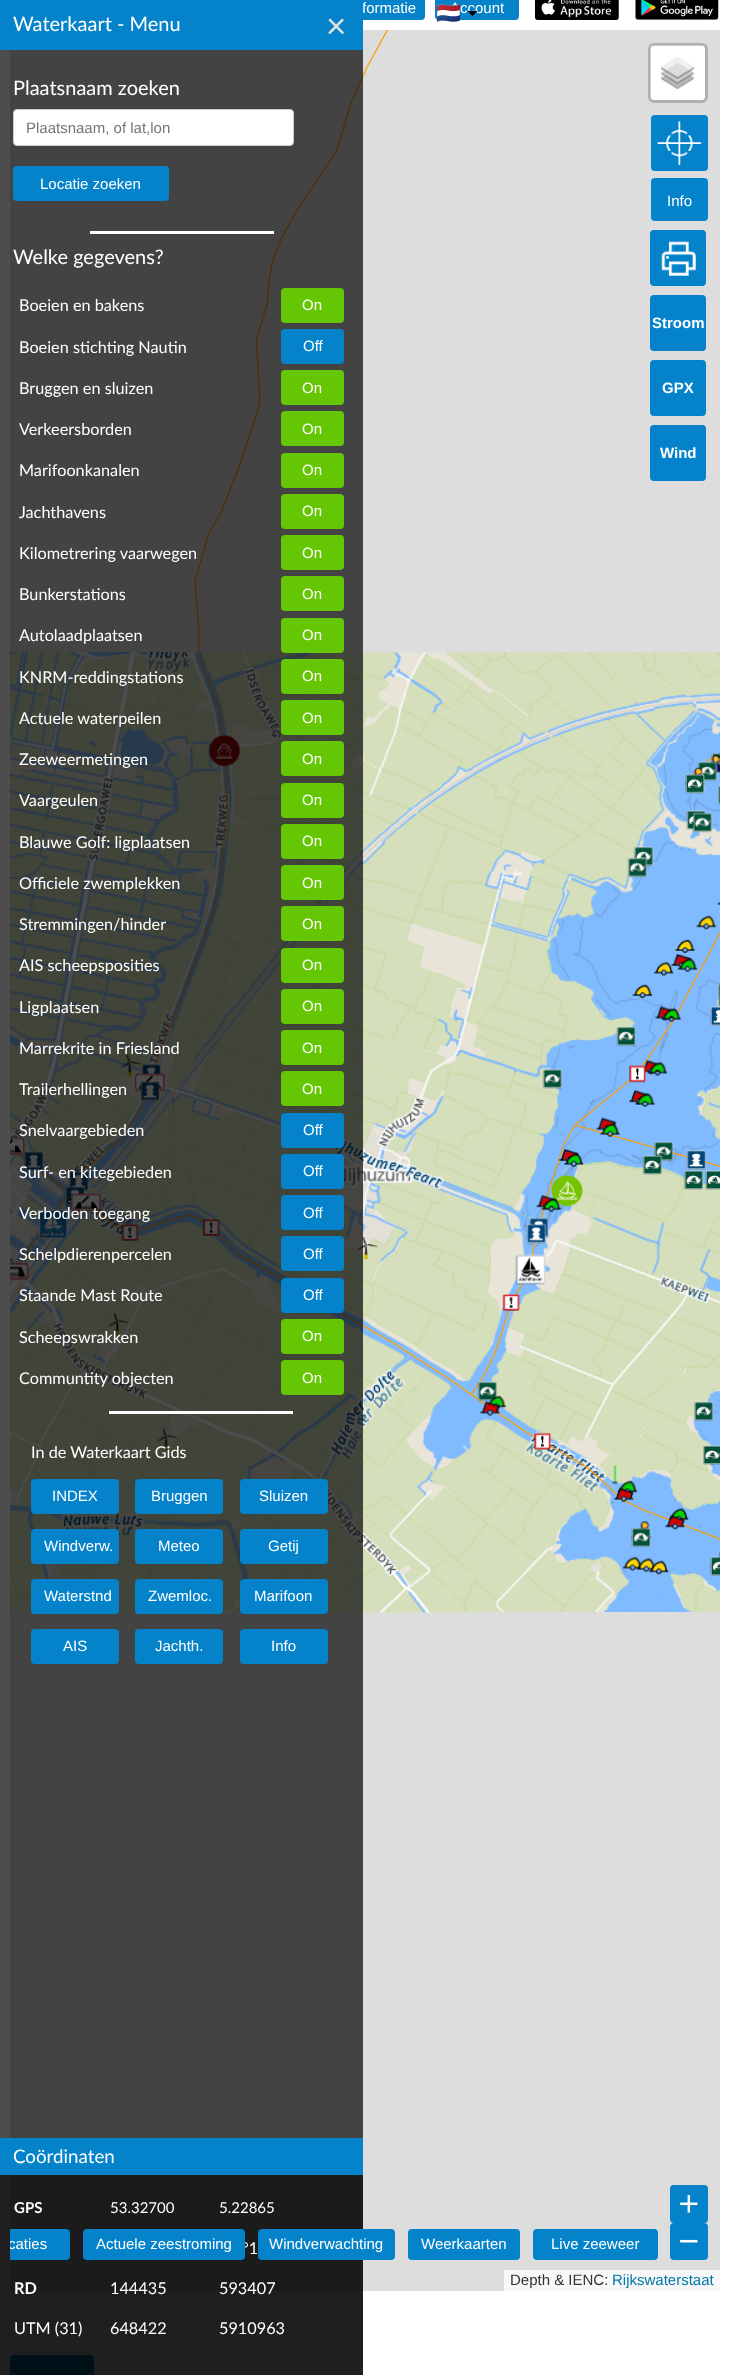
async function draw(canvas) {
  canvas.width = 729
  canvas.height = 2375
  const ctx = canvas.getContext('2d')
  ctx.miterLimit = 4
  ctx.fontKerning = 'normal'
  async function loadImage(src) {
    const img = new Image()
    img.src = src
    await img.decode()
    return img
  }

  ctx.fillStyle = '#fff'
  ctx.fillRect(0, 0, 729, 2375)
  ctx.fillStyle = '#0583ca'
  ctx.beginPath()
  ctx.roundRect(341, -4, 84, 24, 4)
  ctx.fill()
  ctx.font = '15px Liberation Sans'
  ctx.fillStyle = '#fff'
  ctx.fillText('formatie', 362, 13)
  ctx.fillStyle = '#0583ca'
  ctx.beginPath()
  ctx.roundRect(435, -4, 84, 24, 4)
  ctx.fill()
  ctx.fillStyle = '#fff'
  ctx.fillText('Account', 450, 13)
  ctx.font = '20px Noto Color Emoji'
  ctx.fillStyle = '#333'
  ctx.fillText('🇳🇱', 436, 20)
  ctx.fillStyle = '#000'
  ctx.beginPath()
  ctx.moveTo(467.5, 11)
  ctx.lineTo(477.5, 11)
  ctx.lineTo(472.5, 16)
  ctx.closePath()
  ctx.fill()
  ctx.drawImage(await loadImage('image0.png'), 535, 0, 84, 20)
  ctx.drawImage(await loadImage('image1.png'), 635, 0, 84, 20)
  ctx.fillStyle = '#ddd'
  ctx.fillRect(10, 30, 710, 2261)
  ctx.drawImage(await loadImage('image3.png'), 10, 652, 161, 320)
  ctx.drawImage(await loadImage('image7.png'), 171, 972, 320, 321)
  ctx.drawImage(await loadImage('image8.png'), 491, 972, 229, 320)
  ctx.drawImage(await loadImage('image4.png'), 171, 652, 321, 321)
  ctx.drawImage(await loadImage('image5.png'), 491, 652, 229, 320)
  ctx.drawImage(await loadImage('image6.png'), 10, 972, 161, 320)
  ctx.drawImage(await loadImage('image9.png'), 10, 1292, 161, 320)
  ctx.drawImage(await loadImage('image10.png'), 171, 1292, 321, 321)
  ctx.drawImage(await loadImage('image11.png'), 491, 1292, 229, 320)
  ctx.drawImage(await loadImage('image2.png'), 18, 30, 702, 1510)
  ctx.drawImage(await loadImage('image12.png'), 208, 734, 33, 33)
  ctx.drawImage(await loadImage('image13.png'), 711, 752, 9, 11)
  ctx.drawImage(await loadImage('image14.png'), 711, 753, 9, 20)
  ctx.drawImage(await loadImage('image15.png'), 709, 755, 11, 18)
  ctx.drawImage(await loadImage('image17.png'), 697, 761, 21, 21)
  ctx.drawImage(await loadImage('image16.png'), 685, 767, 21, 18)
  ctx.drawImage(await loadImage('image18.png'), 685, 773, 20, 21)
  ctx.drawImage(await loadImage('image19.png'), 718, 785, 2, 20)
  ctx.drawImage(await loadImage('image20.png'), 686, 810, 21, 20)
  ctx.drawImage(await loadImage('image21.png'), 692, 812, 21, 21)
  ctx.drawImage(await loadImage('image22.png'), 633, 846, 21, 21)
  ctx.drawImage(await loadImage('image23.png'), 627, 857, 21, 21)
  ctx.drawImage(await loadImage('image24.png'), 717, 900, 3, 5)
  ctx.drawImage(await loadImage('image25.png'), 696, 915, 21, 15)
  ctx.drawImage(await loadImage('image26.png'), 675, 939, 21, 14)
  ctx.drawImage(await loadImage('image27.png'), 671, 953, 21, 15)
  ctx.drawImage(await loadImage('image28.png'), 654, 961, 20, 15)
  ctx.drawImage(await loadImage('image29.png'), 677, 957, 21, 15)
  ctx.drawImage(await loadImage('image30.png'), 632, 984, 21, 14)
  ctx.drawImage(await loadImage('image31.png'), 718, 983, 2, 25)
  ctx.drawImage(await loadImage('image32.png'), 655, 1005, 21, 16)
  ctx.drawImage(await loadImage('image33.png'), 710, 1006, 10, 20)
  ctx.drawImage(await loadImage('image34.png'), 661, 1007, 21, 15)
  ctx.drawImage(await loadImage('image35.png'), 616, 1026, 21, 21)
  ctx.drawImage(await loadImage('image36.png'), 120, 1054, 22, 24)
  ctx.drawImage(await loadImage('image37.png'), 644, 1059, 18, 16)
  ctx.drawImage(await loadImage('image38.png'), 141, 1063, 21, 11)
  ctx.drawImage(await loadImage('image39.png'), 542, 1068, 21, 21)
  ctx.drawImage(await loadImage('image40.png'), 629, 1065, 17, 18)
  ctx.drawImage(await loadImage('image41.png'), 647, 1061, 21, 15)
  ctx.drawImage(await loadImage('image42.png'), 135, 1073, 30, 19)
  ctx.drawImage(await loadImage('image43.png'), 140, 1081, 20, 21)
  ctx.drawImage(await loadImage('image44.png'), 629, 1089, 20, 16)
  ctx.drawImage(await loadImage('image45.png'), 635, 1092, 21, 15)
  ctx.drawImage(await loadImage('image46.png'), 596, 1117, 21, 15)
  ctx.drawImage(await loadImage('image47.png'), 600, 1123, 21, 14)
  ctx.drawImage(await loadImage('image48.png'), 10, 1138, 15, 18)
  ctx.drawImage(await loadImage('image49.png'), 23, 1151, 21, 21)
  ctx.drawImage(await loadImage('image50.png'), 559, 1148, 20, 15)
  ctx.drawImage(await loadImage('image51.png'), 653, 1141, 21, 21)
  ctx.drawImage(await loadImage('image52.png'), 686, 1150, 21, 20)
  ctx.drawImage(await loadImage('image53.png'), 564, 1152, 20, 15)
  ctx.drawImage(await loadImage('image54.png'), 642, 1155, 21, 20)
  ctx.drawImage(await loadImage('image55.png'), 68, 1171, 21, 21)
  ctx.drawImage(await loadImage('image56.png'), 551, 1174, 32, 33)
  ctx.drawImage(await loadImage('image57.png'), 683, 1170, 21, 20)
  ctx.drawImage(await loadImage('image58.png'), 705, 1170, 15, 20)
  ctx.drawImage(await loadImage('image59.png'), 65, 1186, 20, 21)
  ctx.drawImage(await loadImage('image60.png'), 71, 1193, 31, 19)
  ctx.drawImage(await loadImage('image61.png'), 536, 1194, 21, 16)
  ctx.drawImage(await loadImage('image62.png'), 541, 1197, 21, 15)
  ctx.drawImage(await loadImage('image63.png'), 38, 1209, 31, 31)
  ctx.drawImage(await loadImage('image64.png'), 202, 1219, 18, 17)
  ctx.drawImage(await loadImage('image65.png'), 528, 1217, 21, 21)
  ctx.drawImage(await loadImage('image66.png'), 121, 1224, 18, 17)
  ctx.drawImage(await loadImage('image67.png'), 526, 1223, 21, 21)
  ctx.drawImage(await loadImage('image68.png'), 357, 1237, 21, 23)
  ctx.drawImage(await loadImage('image69.png'), 10, 1263, 19, 18)
  ctx.drawImage(await loadImage('image70.png'), 515, 1254, 31, 31)
  ctx.drawImage(await loadImage('image71.png'), 502, 1294, 18, 17)
  ctx.drawImage(await loadImage('image72.png'), 108, 1313, 21, 24)
  ctx.drawImage(await loadImage('image73.png'), 477, 1381, 21, 21)
  ctx.drawImage(await loadImage('image74.png'), 486, 1395, 21, 15)
  ctx.drawImage(await loadImage('image75.png'), 480, 1400, 21, 16)
  ctx.drawImage(await loadImage('image76.png'), 693, 1401, 21, 21)
  ctx.drawImage(await loadImage('image77.png'), 157, 1428, 21, 23)
  ctx.drawImage(await loadImage('image78.png'), 534, 1432, 17, 18)
  ctx.drawImage(await loadImage('image79.png'), 703, 1445, 17, 20)
  ctx.drawImage(await loadImage('image80.png'), 612, 1465, 7, 19)
  ctx.drawImage(await loadImage('image81.png'), 617, 1480, 21, 14)
  ctx.drawImage(await loadImage('image82.png'), 614, 1487, 20, 15)
  ctx.drawImage(await loadImage('image83.png'), 669, 1507, 20, 15)
  ctx.drawImage(await loadImage('image84.png'), 631, 1521, 21, 18)
  ctx.drawImage(await loadImage('image85.png'), 665, 1514, 21, 16)
  ctx.drawImage(await loadImage('image86.png'), 631, 1527, 21, 21)
  ctx.drawImage(await loadImage('image87.png'), 622, 1556, 21, 15)
  ctx.drawImage(await loadImage('image88.png'), 710, 1551, 10, 17)
  ctx.drawImage(await loadImage('image89.png'), 636, 1557, 21, 15)
  ctx.drawImage(await loadImage('image90.png'), 649, 1560, 20, 15)
  ctx.drawImage(await loadImage('image91.png'), 710, 1556, 10, 20)
  ctx.fillStyle = '#fff'
  ctx.beginPath()
  ctx.roundRect(650, 45, 55, 55, 4)
  ctx.fill()
  ctx.beginPath()
  ctx.roundRect(649.5, 44.5, 57, 57, 4.5)
  ctx.strokeStyle = '#00000033'
  ctx.lineWidth = 3
  ctx.stroke()
  ctx.drawImage(await loadImage('image92.png'), 661, 57, 33, 32)
  ctx.fillStyle = '#0583ca'
  ctx.beginPath()
  ctx.roundRect(651, 115, 57, 56, 4)
  ctx.fill()
  ctx.drawImage(await loadImage('image93.png'), 657, 121, 45, 44)
  ctx.beginPath()
  ctx.roundRect(651, 178, 57, 43, 4)
  ctx.fill()
  ctx.font = '15px Liberation Sans'
  ctx.fillStyle = '#fff'
  ctx.fillText('Info', 667, 206)
  ctx.fillStyle = '#f8f8f8'
  ctx.fillRect(504, 2270, 216, 21)
  ctx.fillStyle = '#333'
  ctx.fillText('Depth & IENC:', 510, 2285)
  ctx.fillStyle = '#0078a8'
  ctx.fillText('Rijkswaterstaat', 612, 2285)
  ctx.fillStyle = '#0583ca'
  ctx.beginPath()
  ctx.roundRect(650, 230, 56, 56, 4)
  ctx.fill()
  ctx.drawImage(await loadImage('image94.png'), 661, 241, 35, 35)
  ctx.beginPath()
  ctx.roundRect(650, 295, 56, 56, 4)
  ctx.fill()
  ctx.font = 'bold 15px Liberation Sans'
  ctx.fillStyle = '#fff'
  ctx.fillText('Stroom', 652, 328)
  ctx.fillStyle = '#0583ca'
  ctx.beginPath()
  ctx.roundRect(650, 360, 56, 56, 4)
  ctx.fill()
  ctx.fillStyle = '#fff'
  ctx.fillText('GPX', 662, 393)
  ctx.fillStyle = '#0583ca'
  ctx.beginPath()
  ctx.roundRect(650, 425, 56, 56, 4)
  ctx.fill()
  ctx.fillStyle = '#fff'
  ctx.fillText('Wind', 660, 458)
  ctx.fillStyle = '#0583ca'
  ctx.beginPath()
  ctx.roundRect(670, 2185, 38, 38, 4)
  ctx.fill()
  ctx.drawImage(await loadImage('image95.png'), 679, 2194, 19, 19)
  ctx.beginPath()
  ctx.roundRect(670, 2223, 38, 37, 4)
  ctx.fill()
  ctx.drawImage(await loadImage('image96.png'), 679, 2239, 19, 4)
  ctx.beginPath()
  ctx.roundRect(10, 2355, 84, 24, 4)
  ctx.fill()
  ctx.fillStyle = '#010101b3'
  ctx.fillRect(0, 50, 363, 2325)
  ctx.fillStyle = '#01010199'
  ctx.fillRect(0, 2175, 363, 200)
  ctx.fillStyle = '#0583ca'
  ctx.beginPath()
  ctx.roundRect(10, 2229, 60, 31, [0, 4, 4, 0])
  ctx.fill()
  ctx.save()
  ctx.beginPath()
  ctx.rect(10, 30, 710, 2261)
  ctx.clip()
  ctx.font = '15px Liberation Sans'
  ctx.fillStyle = '#fff'
  ctx.fillText('caties', 8, 2249)
  ctx.restore()
  ctx.font = '16.25px Lato'
  ctx.fillStyle = '#fff'
  ctx.fillText('°1', 242, 2254)
  ctx.fillStyle = '#0583ca'
  ctx.beginPath()
  ctx.roundRect(83, 2229, 162, 31, 4)
  ctx.fill()
  ctx.font = '15px Liberation Sans'
  ctx.fillStyle = '#fff'
  ctx.fillText('Actuele zeestroming', 96, 2249)
  ctx.fillStyle = '#0583ca'
  ctx.beginPath()
  ctx.roundRect(258, 2229, 137, 31, 4)
  ctx.fill()
  ctx.fillStyle = '#fff'
  ctx.fillText('Windverwachting', 269, 2249)
  ctx.fillStyle = '#0583ca'
  ctx.beginPath()
  ctx.roundRect(408, 2229, 112, 31, 4)
  ctx.fill()
  ctx.fillStyle = '#fff'
  ctx.fillText('Weerkaarten', 421, 2249)
  ctx.fillStyle = '#0583ca'
  ctx.beginPath()
  ctx.roundRect(533, 2229, 125, 31, 4)
  ctx.fill()
  ctx.fillStyle = '#fff'
  ctx.fillText('Live zeeweer', 551, 2249)
  ctx.fillStyle = '#0583ca'
  ctx.fillRect(0, 0, 363, 50)
  ctx.font = '20px Lato'
  ctx.fillStyle = '#fff'
  ctx.fillText('Waterkaart - Menu', 13, 31)
  ctx.font = '35px Lato'
  ctx.fillStyle = '#e2e2e2'
  ctx.fillText('×', 326, 38)
  ctx.font = '20px Lato'
  ctx.fillStyle = '#fff'
  ctx.fillText('Plaatsnaam zoeken', 13, 95)
  ctx.beginPath()
  ctx.roundRect(13.5, 109.5, 280, 36, 3.5)
  ctx.fill()
  ctx.strokeStyle = '#ccc'
  ctx.lineWidth = 1
  ctx.stroke()
  ctx.font = '15px Liberation Sans'
  ctx.fillStyle = '#757575'
  ctx.fillText('Plaatsnaam, of lat,lon', 26, 133)
  ctx.fillStyle = '#0583ca'
  ctx.beginPath()
  ctx.roundRect(13, 166, 156, 35, 4)
  ctx.fill()
  ctx.fillStyle = '#fff'
  ctx.fillText('Locatie zoeken', 40, 189)
  ctx.fillRect(90, 231, 184, 3)
  ctx.font = '20px Lato'
  ctx.fillText('Welke gegevens?', 13, 264)
  ctx.font = '16.25px Lato'
  ctx.fillText('Boeien en bakens', 19, 311)
  ctx.fillStyle = '#65c603'
  ctx.beginPath()
  ctx.roundRect(281, 288, 63, 35, 4)
  ctx.fill()
  ctx.font = '15px Liberation Sans'
  ctx.fillStyle = '#fff'
  ctx.fillText('On', 302, 310)
  ctx.font = '16.25px Lato'
  ctx.fillText('Boeien stichting Nautin', 19, 353)
  ctx.fillStyle = '#0583ca'
  ctx.beginPath()
  ctx.roundRect(281, 329, 63, 35, 4)
  ctx.fill()
  ctx.font = '15px Liberation Sans'
  ctx.fillStyle = '#fff'
  ctx.fillText('Off', 303, 351)
  ctx.font = '16.25px Lato'
  ctx.fillText('Bruggen en sluizen', 19, 394)
  ctx.fillStyle = '#65c603'
  ctx.beginPath()
  ctx.roundRect(281, 370, 63, 35, 4)
  ctx.fill()
  ctx.font = '15px Liberation Sans'
  ctx.fillStyle = '#fff'
  ctx.fillText('On', 302, 393)
  ctx.font = '16.25px Lato'
  ctx.fillText('Verkeersborden', 19, 435)
  ctx.fillStyle = '#65c603'
  ctx.beginPath()
  ctx.roundRect(281, 411, 63, 35, 4)
  ctx.fill()
  ctx.font = '15px Liberation Sans'
  ctx.fillStyle = '#fff'
  ctx.fillText('On', 302, 434)
  ctx.font = '16.25px Lato'
  ctx.fillText('Marifoonkanalen', 19, 476)
  ctx.fillStyle = '#65c603'
  ctx.beginPath()
  ctx.roundRect(281, 453, 63, 35, 4)
  ctx.fill()
  ctx.font = '15px Liberation Sans'
  ctx.fillStyle = '#fff'
  ctx.fillText('On', 302, 475)
  ctx.font = '16.25px Lato'
  ctx.fillText('Jachthavens', 19, 518)
  ctx.fillStyle = '#65c603'
  ctx.beginPath()
  ctx.roundRect(281, 494, 63, 35, 4)
  ctx.fill()
  ctx.font = '15px Liberation Sans'
  ctx.fillStyle = '#fff'
  ctx.fillText('On', 302, 516)
  ctx.font = '16.25px Lato'
  ctx.fillText('Kilometrering vaarwegen', 19, 559)
  ctx.fillStyle = '#65c603'
  ctx.beginPath()
  ctx.roundRect(281, 535, 63, 35, 4)
  ctx.fill()
  ctx.font = '15px Liberation Sans'
  ctx.fillStyle = '#fff'
  ctx.fillText('On', 302, 558)
  ctx.font = '16.25px Lato'
  ctx.fillText('Bunkerstations', 19, 600)
  ctx.fillStyle = '#65c603'
  ctx.beginPath()
  ctx.roundRect(281, 576, 63, 35, 4)
  ctx.fill()
  ctx.font = '15px Liberation Sans'
  ctx.fillStyle = '#fff'
  ctx.fillText('On', 302, 599)
  ctx.font = '16.25px Lato'
  ctx.fillText('Autolaadplaatsen', 19, 641)
  ctx.fillStyle = '#65c603'
  ctx.beginPath()
  ctx.roundRect(281, 618, 63, 35, 4)
  ctx.fill()
  ctx.font = '15px Liberation Sans'
  ctx.fillStyle = '#fff'
  ctx.fillText('On', 302, 640)
  ctx.font = '16.25px Lato'
  ctx.fillText('KNRM-reddingstations', 19, 683)
  ctx.fillStyle = '#65c603'
  ctx.beginPath()
  ctx.roundRect(281, 659, 63, 35, 4)
  ctx.fill()
  ctx.font = '15px Liberation Sans'
  ctx.fillStyle = '#fff'
  ctx.fillText('On', 302, 681)
  ctx.font = '16.25px Lato'
  ctx.fillText('Actuele waterpeilen', 19, 724)
  ctx.fillStyle = '#65c603'
  ctx.beginPath()
  ctx.roundRect(281, 700, 63, 35, 4)
  ctx.fill()
  ctx.font = '15px Liberation Sans'
  ctx.fillStyle = '#fff'
  ctx.fillText('On', 302, 723)
  ctx.font = '16.25px Lato'
  ctx.fillText('Zeeweermetingen', 19, 765)
  ctx.fillStyle = '#65c603'
  ctx.beginPath()
  ctx.roundRect(281, 741, 63, 35, 4)
  ctx.fill()
  ctx.font = '15px Liberation Sans'
  ctx.fillStyle = '#fff'
  ctx.fillText('On', 302, 764)
  ctx.font = '16.25px Lato'
  ctx.fillText('Vaargeulen', 19, 806)
  ctx.fillStyle = '#65c603'
  ctx.beginPath()
  ctx.roundRect(281, 783, 63, 35, 4)
  ctx.fill()
  ctx.font = '15px Liberation Sans'
  ctx.fillStyle = '#fff'
  ctx.fillText('On', 302, 805)
  ctx.font = '16.25px Lato'
  ctx.fillText('Blauwe Golf: ligplaatsen', 19, 848)
  ctx.fillStyle = '#65c603'
  ctx.beginPath()
  ctx.roundRect(281, 824, 63, 35, 4)
  ctx.fill()
  ctx.font = '15px Liberation Sans'
  ctx.fillStyle = '#fff'
  ctx.fillText('On', 302, 846)
  ctx.font = '16.25px Lato'
  ctx.fillText('Officiele zwemplekken', 19, 889)
  ctx.fillStyle = '#65c603'
  ctx.beginPath()
  ctx.roundRect(281, 865, 63, 35, 4)
  ctx.fill()
  ctx.font = '15px Liberation Sans'
  ctx.fillStyle = '#fff'
  ctx.fillText('On', 302, 888)
  ctx.font = '16.25px Lato'
  ctx.fillText('Stremmingen/hinder', 19, 930)
  ctx.fillStyle = '#65c603'
  ctx.beginPath()
  ctx.roundRect(281, 906, 63, 35, 4)
  ctx.fill()
  ctx.font = '15px Liberation Sans'
  ctx.fillStyle = '#fff'
  ctx.fillText('On', 302, 929)
  ctx.font = '16.25px Lato'
  ctx.fillText('AIS scheepsposities', 19, 971)
  ctx.fillStyle = '#65c603'
  ctx.beginPath()
  ctx.roundRect(281, 948, 63, 35, 4)
  ctx.fill()
  ctx.font = '15px Liberation Sans'
  ctx.fillStyle = '#fff'
  ctx.fillText('On', 302, 970)
  ctx.font = '16.25px Lato'
  ctx.fillText('Ligplaatsen', 19, 1013)
  ctx.fillStyle = '#65c603'
  ctx.beginPath()
  ctx.roundRect(281, 989, 63, 35, 4)
  ctx.fill()
  ctx.font = '15px Liberation Sans'
  ctx.fillStyle = '#fff'
  ctx.fillText('On', 302, 1011)
  ctx.font = '16.25px Lato'
  ctx.fillText('Marrekrite in Friesland', 19, 1054)
  ctx.fillStyle = '#65c603'
  ctx.beginPath()
  ctx.roundRect(281, 1030, 63, 35, 4)
  ctx.fill()
  ctx.font = '15px Liberation Sans'
  ctx.fillStyle = '#fff'
  ctx.fillText('On', 302, 1053)
  ctx.font = '16.25px Lato'
  ctx.fillText('Trailerhellingen', 19, 1095)
  ctx.fillStyle = '#65c603'
  ctx.beginPath()
  ctx.roundRect(281, 1071, 63, 35, 4)
  ctx.fill()
  ctx.font = '15px Liberation Sans'
  ctx.fillStyle = '#fff'
  ctx.fillText('On', 302, 1094)
  ctx.font = '16.25px Lato'
  ctx.fillText('Snelvaargebieden', 19, 1136)
  ctx.fillStyle = '#0583ca'
  ctx.beginPath()
  ctx.roundRect(281, 1113, 63, 35, 4)
  ctx.fill()
  ctx.font = '15px Liberation Sans'
  ctx.fillStyle = '#fff'
  ctx.fillText('Off', 303, 1135)
  ctx.font = '16.25px Lato'
  ctx.fillText('Surf- en kitegebieden', 19, 1178)
  ctx.fillStyle = '#0583ca'
  ctx.beginPath()
  ctx.roundRect(281, 1154, 63, 35, 4)
  ctx.fill()
  ctx.font = '15px Liberation Sans'
  ctx.fillStyle = '#fff'
  ctx.fillText('Off', 303, 1176)
  ctx.font = '16.25px Lato'
  ctx.fillText('Verboden toegang', 19, 1219)
  ctx.fillStyle = '#0583ca'
  ctx.beginPath()
  ctx.roundRect(281, 1195, 63, 35, 4)
  ctx.fill()
  ctx.font = '15px Liberation Sans'
  ctx.fillStyle = '#fff'
  ctx.fillText('Off', 303, 1218)
  ctx.font = '16.25px Lato'
  ctx.fillText('Schelpdierenpercelen', 19, 1260)
  ctx.fillStyle = '#0583ca'
  ctx.beginPath()
  ctx.roundRect(281, 1236, 63, 35, 4)
  ctx.fill()
  ctx.font = '15px Liberation Sans'
  ctx.fillStyle = '#fff'
  ctx.fillText('Off', 303, 1259)
  ctx.font = '16.25px Lato'
  ctx.fillText('Staande Mast Route', 19, 1301)
  ctx.fillStyle = '#0583ca'
  ctx.beginPath()
  ctx.roundRect(281, 1278, 63, 35, 4)
  ctx.fill()
  ctx.font = '15px Liberation Sans'
  ctx.fillStyle = '#fff'
  ctx.fillText('Off', 303, 1300)
  ctx.font = '16.25px Lato'
  ctx.fillText('Scheepswrakken', 19, 1343)
  ctx.fillStyle = '#65c603'
  ctx.beginPath()
  ctx.roundRect(281, 1319, 63, 35, 4)
  ctx.fill()
  ctx.font = '15px Liberation Sans'
  ctx.fillStyle = '#fff'
  ctx.fillText('On', 302, 1341)
  ctx.font = '16.25px Lato'
  ctx.fillText('Communtity objecten', 19, 1384)
  ctx.fillStyle = '#65c603'
  ctx.beginPath()
  ctx.roundRect(281, 1360, 63, 35, 4)
  ctx.fill()
  ctx.font = '15px Liberation Sans'
  ctx.fillStyle = '#fff'
  ctx.fillText('On', 302, 1383)
  ctx.fillRect(109, 1411, 184, 3)
  ctx.font = '16.25px Lato'
  ctx.fillText('In de Waterkaart Gids', 31, 1458)
  ctx.fillStyle = '#0583ca'
  ctx.beginPath()
  ctx.roundRect(31, 1479, 88, 35, 4)
  ctx.fill()
  ctx.font = '15px Liberation Sans'
  ctx.fillStyle = '#fff'
  ctx.fillText('INDEX', 52, 1501)
  ctx.fillStyle = '#0583ca'
  ctx.beginPath()
  ctx.roundRect(135, 1479, 88, 35, 4)
  ctx.fill()
  ctx.fillStyle = '#fff'
  ctx.fillText('Bruggen', 151, 1501)
  ctx.fillStyle = '#0583ca'
  ctx.beginPath()
  ctx.roundRect(240, 1479, 88, 35, 4)
  ctx.fill()
  ctx.fillStyle = '#fff'
  ctx.fillText('Sluizen', 259, 1501)
  ctx.fillStyle = '#0583ca'
  ctx.beginPath()
  ctx.roundRect(31, 1529, 88, 35, 4)
  ctx.fill()
  ctx.fillStyle = '#fff'
  ctx.fillText('Windverw.', 44, 1551)
  ctx.fillStyle = '#0583ca'
  ctx.beginPath()
  ctx.roundRect(135, 1529, 88, 35, 4)
  ctx.fill()
  ctx.fillStyle = '#fff'
  ctx.fillText('Meteo', 158, 1551)
  ctx.fillStyle = '#0583ca'
  ctx.beginPath()
  ctx.roundRect(240, 1529, 88, 35, 4)
  ctx.fill()
  ctx.fillStyle = '#fff'
  ctx.fillText('Getij', 268, 1551)
  ctx.fillStyle = '#0583ca'
  ctx.beginPath()
  ctx.roundRect(31, 1579, 88, 35, 4)
  ctx.fill()
  ctx.fillStyle = '#fff'
  ctx.fillText('Waterstnd', 44, 1601)
  ctx.fillStyle = '#0583ca'
  ctx.beginPath()
  ctx.roundRect(135, 1579, 88, 35, 4)
  ctx.fill()
  ctx.fillStyle = '#fff'
  ctx.fillText('Zwemloc.', 148, 1601)
  ctx.fillStyle = '#0583ca'
  ctx.beginPath()
  ctx.roundRect(240, 1579, 88, 35, 4)
  ctx.fill()
  ctx.fillStyle = '#fff'
  ctx.fillText('Marifoon', 254, 1601)
  ctx.fillStyle = '#0583ca'
  ctx.beginPath()
  ctx.roundRect(31, 1629, 88, 35, 4)
  ctx.fill()
  ctx.fillStyle = '#fff'
  ctx.fillText('AIS', 63, 1651)
  ctx.fillStyle = '#0583ca'
  ctx.beginPath()
  ctx.roundRect(135, 1629, 88, 35, 4)
  ctx.fill()
  ctx.fillStyle = '#fff'
  ctx.fillText('Jachth.', 155, 1651)
  ctx.fillStyle = '#0583ca'
  ctx.beginPath()
  ctx.roundRect(240, 1629, 88, 35, 4)
  ctx.fill()
  ctx.fillStyle = '#fff'
  ctx.fillText('Info', 271, 1651)
  ctx.fillStyle = '#0583ca'
  ctx.fillRect(0, 2138, 363, 37)
  ctx.font = '18.75px Lato'
  ctx.fillStyle = '#fff'
  ctx.fillText('Coördinaten', 13, 2163)
  ctx.font = 'bold 15px Lato'
  ctx.fillText('GPS', 14, 2213)
  ctx.font = '15px Lato'
  ctx.fillText('53.32700', 110, 2213)
  ctx.fillText('5.22865', 219, 2213)
  ctx.font = 'bold 16.25px Lato'
  ctx.fillText('RD', 14, 2294)
  ctx.font = '16.25px Lato'
  ctx.fillText('144435', 110, 2294)
  ctx.fillText('593407', 219, 2294)
  ctx.fillText('UTM (31)', 14, 2334)
  ctx.fillText('648422', 110, 2334)
  ctx.fillText('5910963', 219, 2334)
}

draw(document.querySelector('canvas'))
